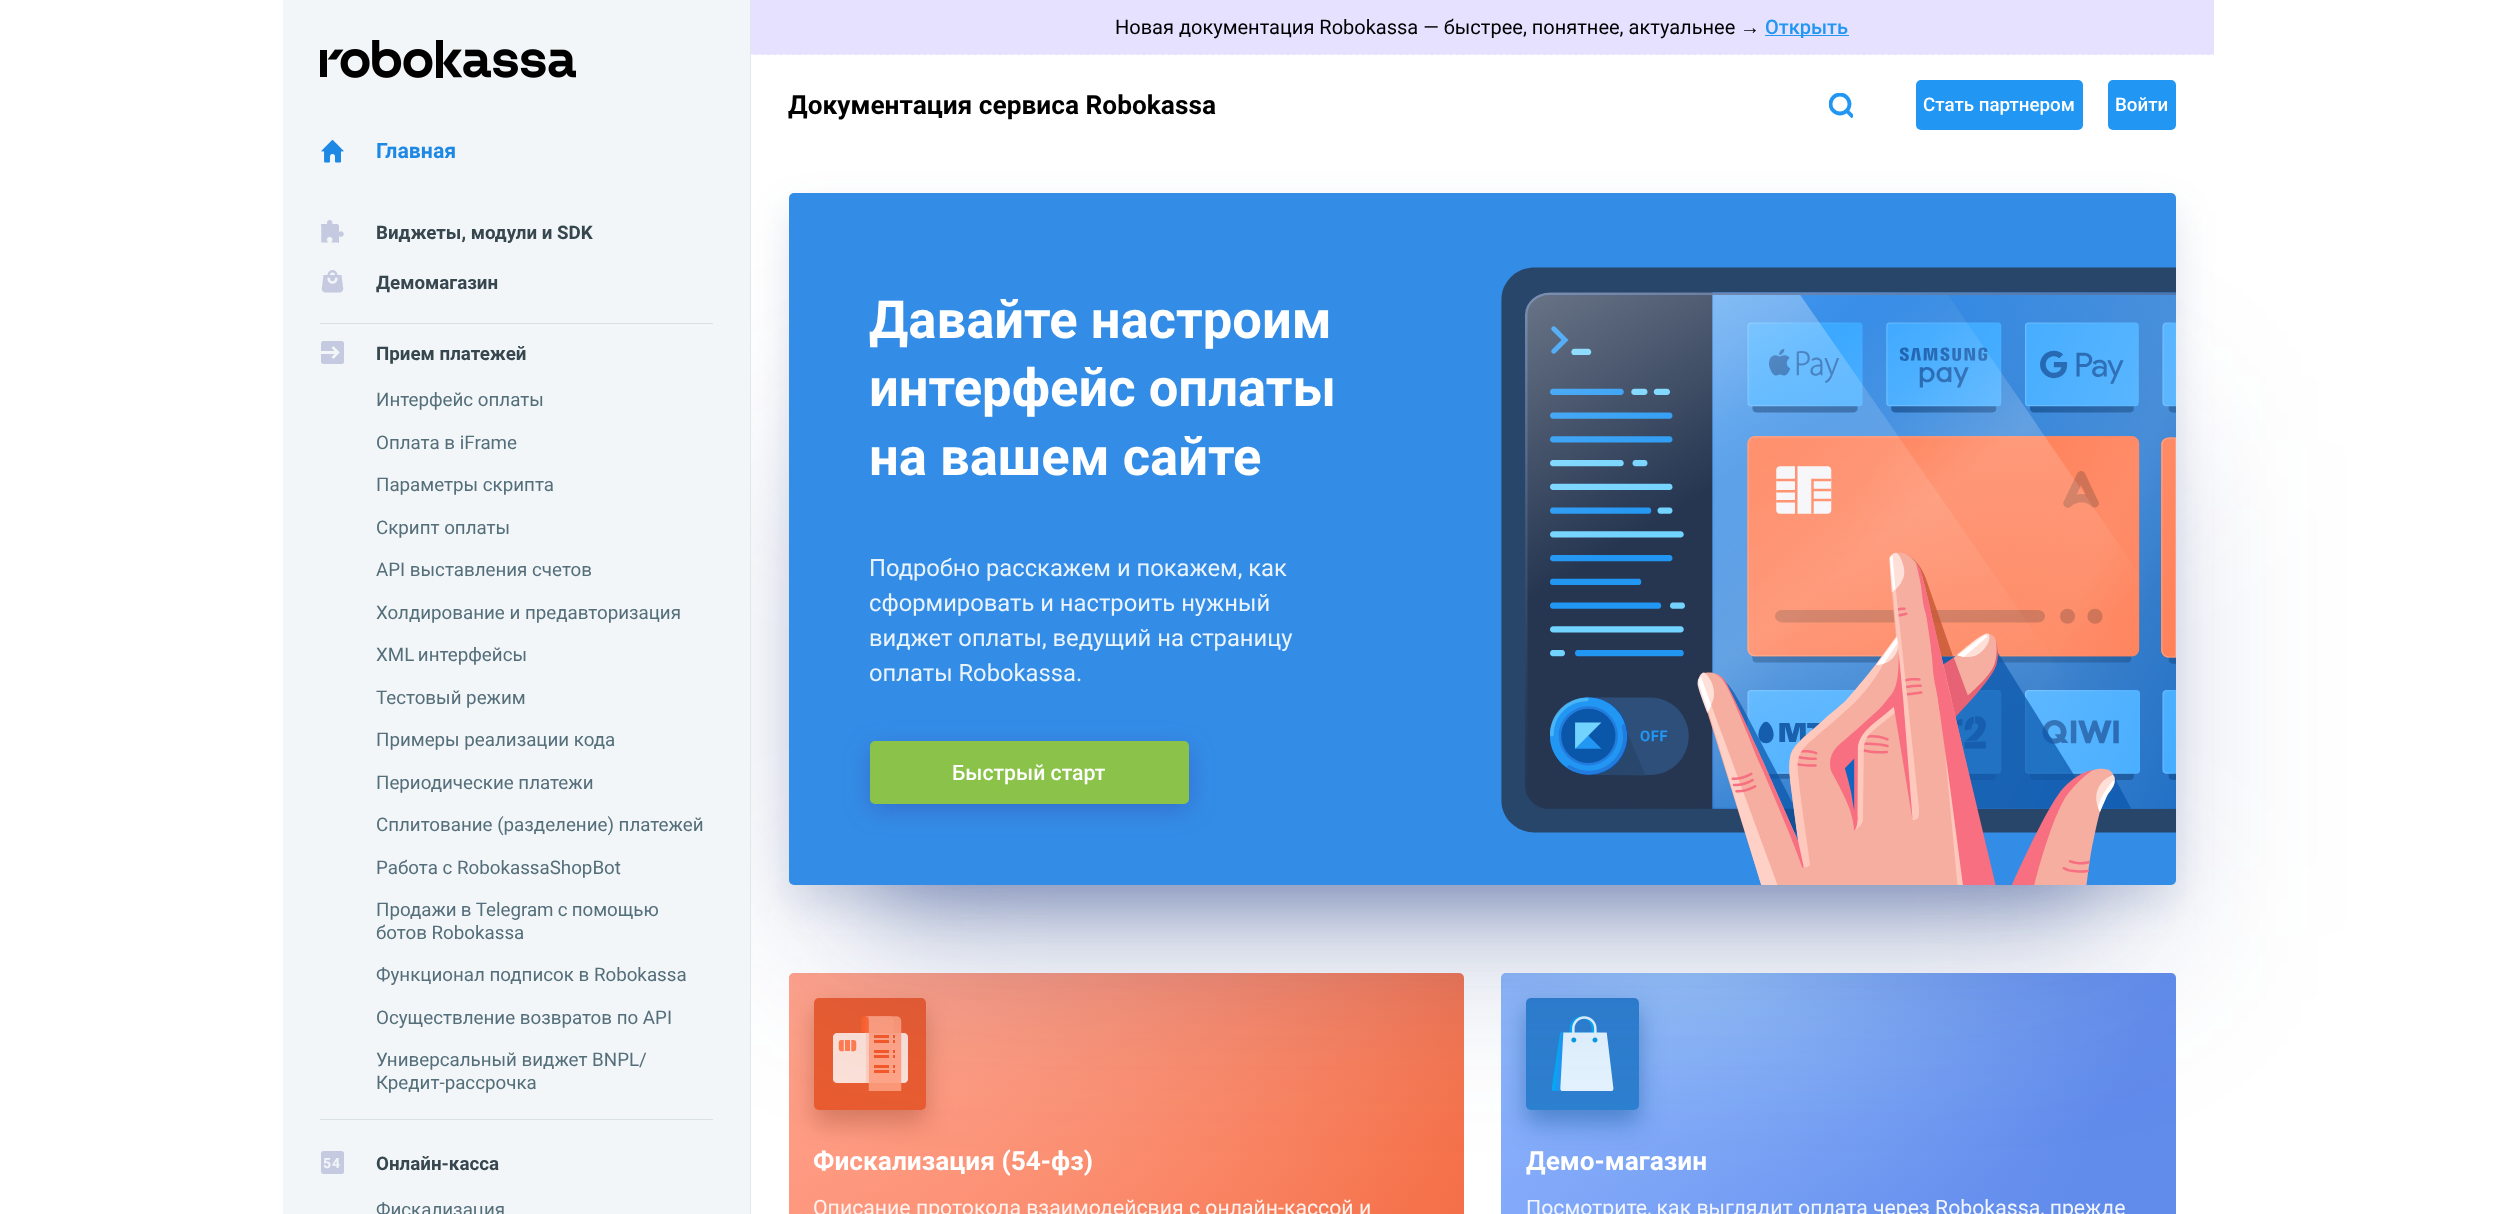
async function draw(canvas) {
  canvas.width = 2494
  canvas.height = 1214
  const ctx = canvas.getContext('2d')
  ctx.miterLimit = 4
  ctx.fontKerning = 'normal'
  async function loadImage(src) {
    const img = new Image()
    img.src = src
    await img.decode()
    return img
  }
  let gradient

  ctx.fillStyle = '#fff'
  ctx.fillRect(0, 0, 2494, 1214)
  ctx.fillStyle = '#e6e1ff'
  ctx.fillRect(751, 0, 1463, 55)
  ctx.beginPath()
  ctx.moveTo(751, 54.5)
  ctx.lineTo(2214, 54.5)
  ctx.strokeStyle = '#f1efff'
  ctx.lineWidth = 1.2
  ctx.setLineDash([3.75, 2.51])
  ctx.stroke()
  ctx.font = '20px Roboto'
  ctx.fillStyle = '#000'
  ctx.fillText('Новая документация Robokassa — быстрее, понятнее, актуальнее', 1115, 34)
  ctx.font = '20px Liberation Sans'
  ctx.fillText('→', 1740, 34)
  ctx.fillStyle = '#2196f3'
  ctx.fillRect(1765, 35, 84, 1)
  ctx.font = '500 20px Roboto'
  ctx.fillText('Открыть', 1765, 34)
  ctx.font = 'bold 26.25px Roboto'
  ctx.fillStyle = '#000'
  ctx.fillText('Документация сервиса Robokassa', 788, 114)
  ctx.save()
  ctx.beginPath()
  ctx.rect(1829, 93, 24, 25)
  ctx.clip()
  ctx.beginPath()
  ctx.arc(1840, 104, 9.5, 0, 2 * Math.PI)
  ctx.strokeStyle = '#2196f3'
  ctx.lineWidth = 3.8
  ctx.setLineDash([])
  ctx.stroke()
  ctx.beginPath()
  ctx.moveTo(1846, 110)
  ctx.lineTo(1853, 117)
  ctx.stroke()
  ctx.restore()
  ctx.fillStyle = '#2196f3'
  ctx.beginPath()
  ctx.roundRect(1916, 80, 167, 50, 5)
  ctx.fill()
  ctx.font = '500 18.75px Roboto'
  ctx.fillStyle = '#fff'
  ctx.fillText('Стать партнером', 1923, 111)
  ctx.fillStyle = '#2196f3'
  ctx.beginPath()
  ctx.roundRect(2108, 80, 68, 50, 5)
  ctx.fill()
  ctx.fillStyle = '#fff'
  ctx.fillText('Войти', 2115, 111)
  gradient = ctx.createLinearGradient(1475, 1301, 777, 999)
  gradient.addColorStop(0.01, '#f46e45')
  gradient.addColorStop(0.99, '#ff957d')
  ctx.fillStyle = gradient
  ctx.beginPath()
  ctx.roundRect(789, 973, 675, 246, 5)
  ctx.fill()
  gradient = ctx.createRadialGradient(881, 1609.86, 0, 881, 1609.86, 631)
  gradient.addColorStop(0.01, '#ffb39c80')
  gradient.addColorStop(1, '#ffb39c00')
  ctx.fillStyle = gradient
  ctx.beginPath()
  ctx.roundRect(789, 973, 675, 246, 5)
  ctx.save()
  ctx.clip()
  ctx.scale(1, 390 / 631)
  ctx.fillRect(0, 0, 2494, 1965)
  ctx.restore()
  ctx.fillStyle = '#9a472c66'
  ctx.filter = 'blur(12.5px)'
  ctx.beginPath()
  ctx.roundRect(814, 1010, 112, 113, 5)
  ctx.fill()
  ctx.filter = 'none'
  ctx.fillStyle = '#e95c30'
  ctx.beginPath()
  ctx.roundRect(814, 998, 112, 112, 5)
  ctx.fill()
  ctx.drawImage(await loadImage('image5.png'), 833, 1016, 75, 75)
  gradient = ctx.createLinearGradient(1494, 989, 2184, 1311)
  gradient.addColorStop(0.02, '#8db3ff')
  gradient.addColorStop(0.8, '#5f8aeb')
  ctx.fillStyle = gradient
  ctx.beginPath()
  ctx.roundRect(1501, 973, 675, 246, 5)
  ctx.fill()
  gradient = ctx.createRadialGradient(1691, 1820.2, 0, 1691, 1820.2, 703)
  gradient.addColorStop(0, '#b3e5fc80')
  gradient.addColorStop(0.72, '#6f96ed26')
  ctx.fillStyle = gradient
  ctx.beginPath()
  ctx.roundRect(1501, 973, 675, 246, 5)
  ctx.save()
  ctx.clip()
  ctx.scale(1, 370 / 703)
  ctx.fillRect(0, 0, 2494, 2307)
  ctx.restore()
  ctx.fillStyle = '#155ca380'
  ctx.filter = 'blur(12.5px)'
  ctx.beginPath()
  ctx.roundRect(1526, 1010, 113, 113, 5)
  ctx.fill()
  ctx.filter = 'none'
  ctx.fillStyle = '#2e7fd0'
  ctx.beginPath()
  ctx.roundRect(1526, 998, 113, 112, 5)
  ctx.fill()
  ctx.drawImage(await loadImage('image6.png'), 1551, 1016, 63, 75)
  ctx.fillStyle = '#26408945'
  ctx.filter = 'blur(100px)'
  ctx.beginPath()
  ctx.roundRect(833, 441, 1298, 494, 19)
  ctx.fill()
  ctx.filter = 'none'
  ctx.fillStyle = '#26408966'
  ctx.filter = 'blur(44px)'
  ctx.beginPath()
  ctx.roundRect(876, 300, 1212, 601, 10)
  ctx.fill()
  ctx.filter = 'none'
  ctx.fillStyle = '#26408926'
  ctx.filter = 'blur(19px)'
  ctx.beginPath()
  ctx.roundRect(789, 211, 1387, 693, 5)
  ctx.fill()
  ctx.filter = 'none'
  ctx.fillStyle = '#f2f6f8'
  ctx.fillRect(283, 0, 467, 1214)
  ctx.fillStyle = '#e0e8ec'
  ctx.fillRect(750, 0, 1, 1214)
  ctx.drawImage(await loadImage('image0.png'), 320, 40, 256, 38)
  ctx.drawImage(await loadImage('image1.png'), 321, 140, 23, 23)
  ctx.font = 'bold 21.25px Roboto'
  ctx.fillStyle = '#1e88e5'
  ctx.fillText('Главная', 376, 158)
  ctx.fillStyle = '#d7e0e4'
  ctx.fillRect(320, 323, 393, 1)
  ctx.drawImage(await loadImage('image2.png'), 321, 220, 23, 23)
  ctx.font = 'bold 18.75px Roboto'
  ctx.fillStyle = '#37474f'
  ctx.fillText('Виджеты, модули и SDK', 376, 239)
  ctx.drawImage(await loadImage('image3.png'), 321, 270, 23, 23)
  ctx.fillText('Демомагазин', 376, 289)
  ctx.fillStyle = '#d7e0e4'
  ctx.fillRect(320, 1119, 393, 1)
  ctx.fillStyle = '#c6cae1'
  ctx.beginPath()
  ctx.roundRect(321, 341, 23, 23, 2.5)
  ctx.fill()
  ctx.beginPath()
  ctx.moveTo(332.5, 347)
  ctx.lineTo(338, 352.5)
  ctx.lineTo(332.5, 358)
  ctx.strokeStyle = '#f2f6f8'
  ctx.lineWidth = 2.5
  ctx.setLineDash([])
  ctx.stroke()
  ctx.fillStyle = '#f2f6f8'
  ctx.fillRect(321, 351, 17, 3)
  ctx.fillStyle = '#37474f'
  ctx.fillText('Прием платежей', 376, 360)
  ctx.font = '18.75px Roboto'
  ctx.fillStyle = '#546e7a'
  ctx.fillText('Интерфейс оплаты', 376, 406)
  ctx.fillText('Оплата в iFrame', 376, 449)
  ctx.fillText('Параметры скрипта', 376, 491)
  ctx.fillText('Скрипт оплаты', 376, 534)
  ctx.fillText('API выставления счетов', 376, 576)
  ctx.fillText('Холдирование и предавторизация', 376, 619)
  ctx.wordSpacing = '-1px'
  ctx.fillText('XML интерфейсы', 376, 661)
  ctx.wordSpacing = '0px'
  ctx.fillText('Тестовый режим', 376, 704)
  ctx.fillText('Примеры реализации кода', 376, 746)
  ctx.fillText('Периодические платежи', 376, 789)
  ctx.fillText('Сплитование (разделение) платежей', 376, 831)
  ctx.fillText('Работа с RobokassaShopBot', 376, 874)
  ctx.wordSpacing = '-0.5px'
  ctx.fillText('Продажи в Telegram с помощью', 376, 916)
  ctx.wordSpacing = '0px'
  ctx.fillText('ботов Robokassa', 376, 939)
  ctx.fillText('Функционал подписок в Robokassa', 376, 981)
  ctx.fillText('Осуществление возвратов по API', 376, 1024)
  ctx.fillText('Универсальный виджет BNPL/', 376, 1066)
  ctx.fillText('Кредит-рассрочка', 376, 1089)
  ctx.fillStyle = '#c6cae1'
  ctx.beginPath()
  ctx.roundRect(321, 1151, 23, 23, 2.5)
  ctx.fill()
  ctx.letterSpacing = '1px'
  ctx.font = 'bold 14px Roboto'
  ctx.fillStyle = '#f2f6f8'
  ctx.fillText('54', 323, 1168)
  ctx.letterSpacing = '0px'
  ctx.font = 'bold 18.75px Roboto'
  ctx.fillStyle = '#37474f'
  ctx.fillText('Онлайн-касса', 376, 1170)
  ctx.font = '18.75px Roboto'
  ctx.fillStyle = '#546e7a'
  ctx.fillText('Фискализация', 376, 1216)
  ctx.fillStyle = '#338de7'
  ctx.beginPath()
  ctx.roundRect(789, 193, 1387, 692, 5)
  ctx.fill()
  ctx.font = 'bold 52.5px Roboto'
  ctx.fillStyle = '#fff'
  ctx.fillText('Давайте настроим', 869, 338)
  ctx.fillText('интерфейс оплаты', 869, 406)
  ctx.fillText('на вашем сайте', 869, 475)
  ctx.drawImage(await loadImage('image4.png'), 1501, 267, 675, 618)
  ctx.font = '23.75px Roboto'
  ctx.fillStyle = '#ebf4fd'
  ctx.fillText('Подробно расскажем и покажем, как', 869, 576)
  ctx.fillText('сформировать и настроить нужный', 869, 611)
  ctx.fillText('виджет оплаты, ведущий на страницу', 869, 646)
  ctx.fillText('оплаты Robokassa.', 869, 681)
  ctx.fillStyle = '#3949ab73'
  ctx.filter = 'blur(12.5px)'
  ctx.beginPath()
  ctx.roundRect(870, 748, 319, 62, 5)
  ctx.fill()
  ctx.filter = 'none'
  ctx.fillStyle = '#8bc34a'
  ctx.beginPath()
  ctx.roundRect(870, 741, 319, 63, 5)
  ctx.fill()
  ctx.font = '500 21.25px Roboto'
  ctx.fillStyle = '#fff'
  ctx.fillText('Быстрый старт', 952, 780)
  ctx.font = 'bold 26.25px Roboto'
  ctx.fillText('Фискализация (54-фз)', 813, 1170)
  ctx.font = '21.25px Roboto'
  ctx.fillStyle = '#fff3f0'
  ctx.fillText('Описание протокола взаимодейсвия с онлайн-кассой и', 813, 1215)
  ctx.font = 'bold 26.25px Roboto'
  ctx.fillStyle = '#fff'
  ctx.fillText('Демо-магазин', 1526, 1170)
  ctx.font = '21.25px Roboto'
  ctx.fillStyle = '#f1f5fe'
  ctx.fillText('Посмотрите, как выглядит оплата через Robokassa, прежде', 1526, 1215)
}

draw(document.querySelector('canvas'))
